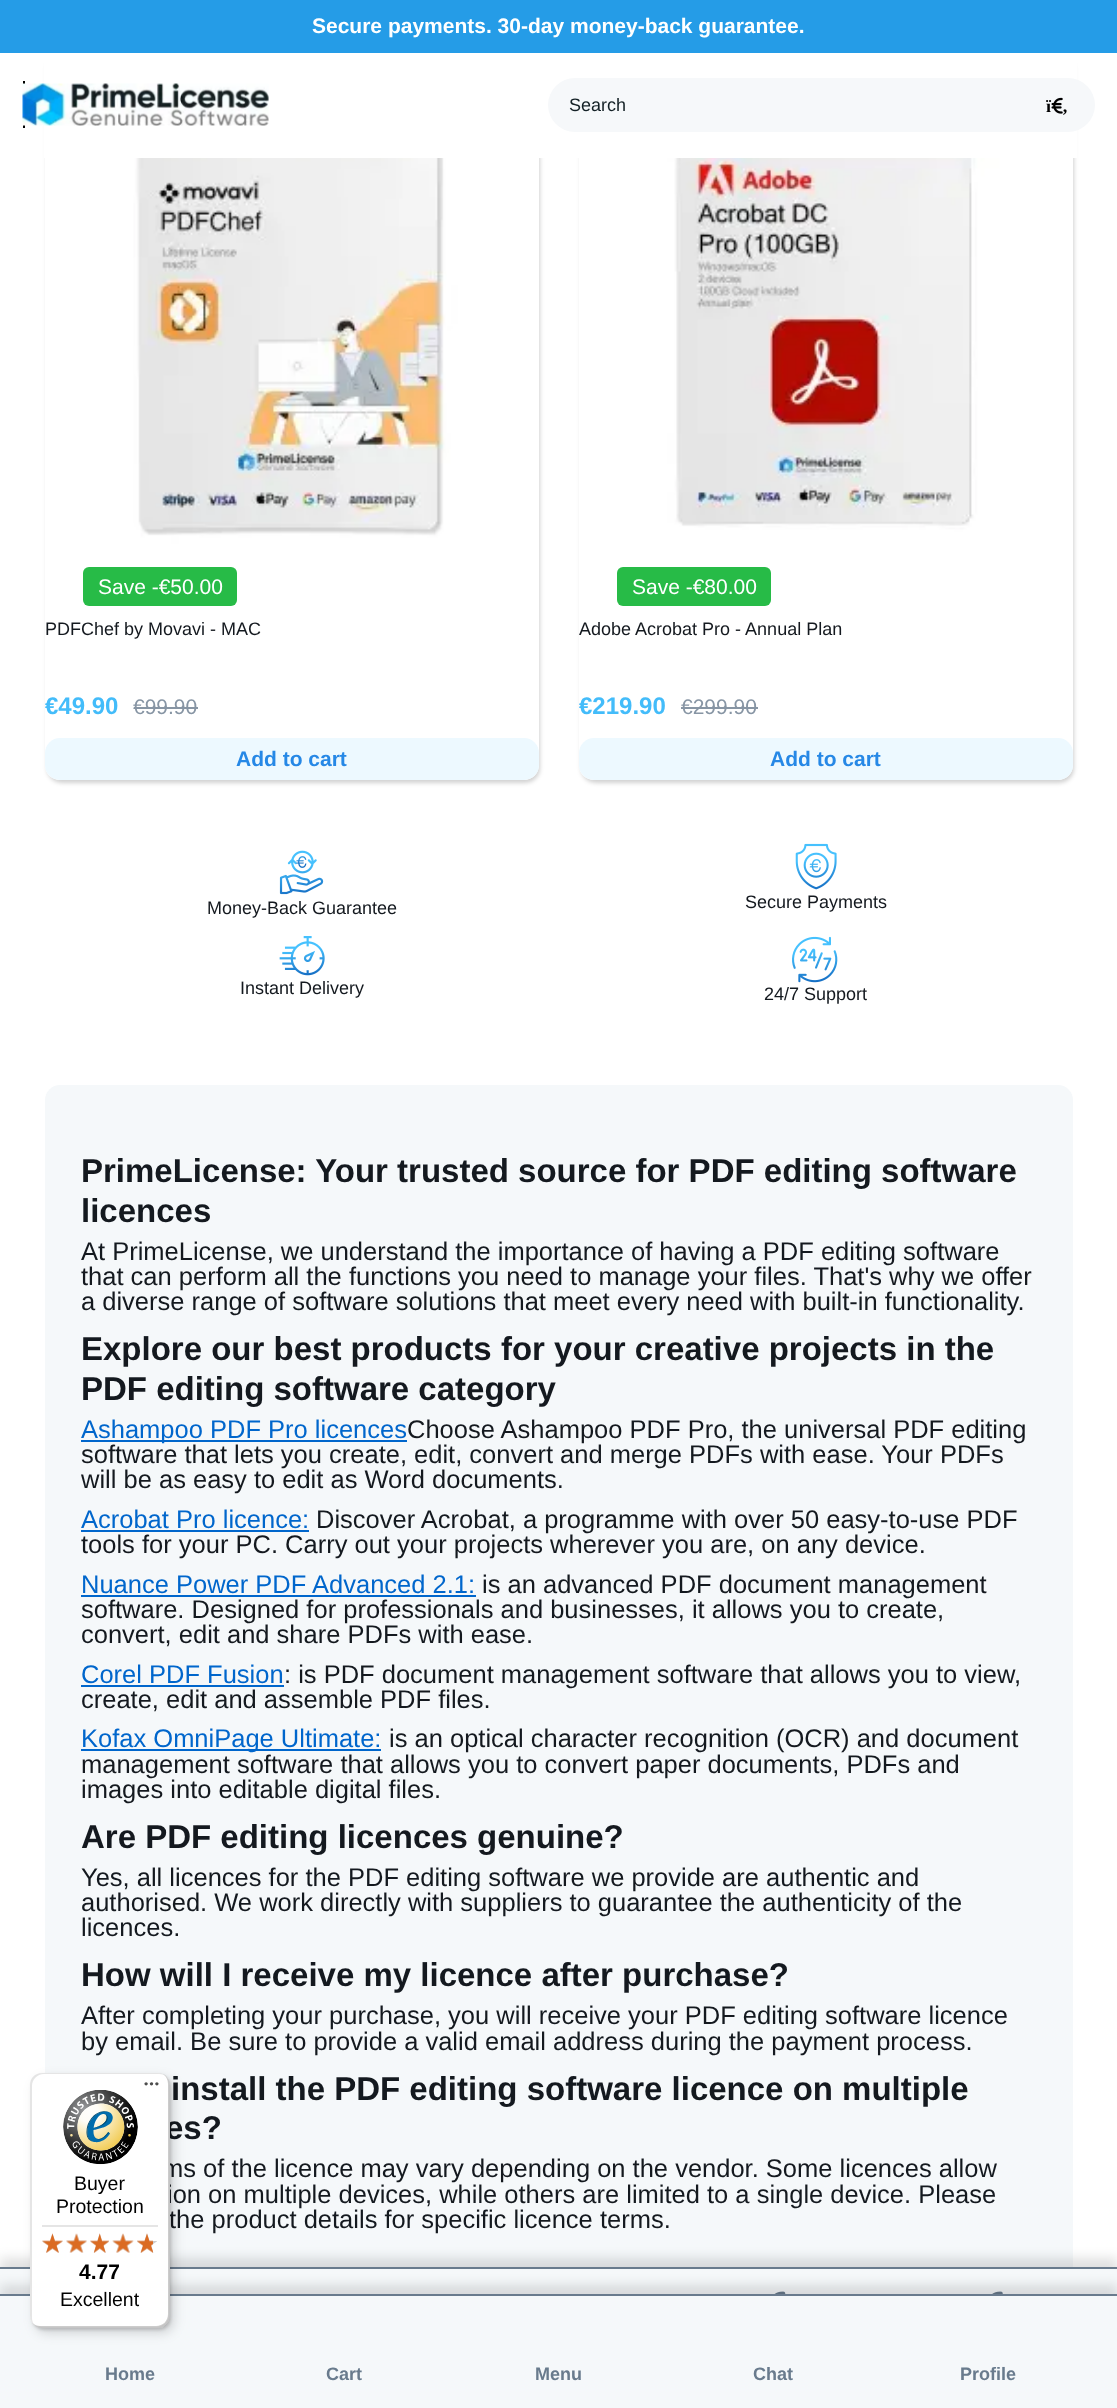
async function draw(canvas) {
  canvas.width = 1117
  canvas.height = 2408
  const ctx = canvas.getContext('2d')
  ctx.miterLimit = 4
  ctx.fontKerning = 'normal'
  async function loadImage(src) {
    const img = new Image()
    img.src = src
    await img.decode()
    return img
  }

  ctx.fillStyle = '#fff'
  ctx.fillRect(0, 0, 1117, 2408)
  ctx.save()
  ctx.beginPath()
  ctx.moveTo(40, 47)
  ctx.lineTo(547, 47)
  ctx.lineTo(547, 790)
  ctx.lineTo(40, 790)
  ctx.closePath()
  ctx.moveTo(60, 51)
  ctx.lineTo(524, 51)
  ctx.bezierCurveTo(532.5, 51, 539, 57.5, 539, 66)
  ctx.lineTo(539, 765)
  ctx.bezierCurveTo(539, 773.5, 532.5, 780, 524, 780)
  ctx.lineTo(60, 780)
  ctx.bezierCurveTo(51.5, 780, 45, 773.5, 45, 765)
  ctx.lineTo(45, 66)
  ctx.bezierCurveTo(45, 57.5, 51.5, 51, 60, 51)
  ctx.closePath()
  ctx.clip('evenodd')
  ctx.fillStyle = '#0000002e'
  ctx.filter = 'blur(2px)'
  ctx.beginPath()
  ctx.roundRect(47, 54, 493, 729, 15)
  ctx.fill()
  ctx.filter = 'none'
  ctx.restore()
  ctx.save()
  ctx.beginPath()
  ctx.moveTo(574, 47)
  ctx.lineTo(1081, 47)
  ctx.lineTo(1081, 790)
  ctx.lineTo(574, 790)
  ctx.closePath()
  ctx.moveTo(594, 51)
  ctx.lineTo(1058, 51)
  ctx.bezierCurveTo(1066.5, 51, 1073, 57.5, 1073, 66)
  ctx.lineTo(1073, 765)
  ctx.bezierCurveTo(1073, 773.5, 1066.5, 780, 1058, 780)
  ctx.lineTo(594, 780)
  ctx.bezierCurveTo(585.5, 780, 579, 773.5, 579, 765)
  ctx.lineTo(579, 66)
  ctx.bezierCurveTo(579, 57.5, 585.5, 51, 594, 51)
  ctx.closePath()
  ctx.clip('evenodd')
  ctx.fillStyle = '#0000002e'
  ctx.filter = 'blur(2px)'
  ctx.beginPath()
  ctx.roundRect(581, 54, 493, 729, 15)
  ctx.fill()
  ctx.filter = 'none'
  ctx.restore()
  ctx.fillRect(44, 53, 1033, 105)
  ctx.fillStyle = '#259ce7'
  ctx.fillRect(0, 0, 1117, 53)
  ctx.font = 'bold 21px Liberation Sans'
  ctx.fillStyle = '#fff'
  ctx.fillText('Secure payments. 30-day money-back guarantee.', 312, 33)
  ctx.fillStyle = '#000'
  ctx.fillRect(23, 81, 2, 47)
  ctx.drawImage(await loadImage('image0.png'), 22, 83, 247, 43)
  ctx.fillStyle = '#f6f8fa'
  ctx.beginPath()
  ctx.roundRect(548, 78, 547, 54, 27)
  ctx.fill()
  ctx.font = '18px Liberation Sans'
  ctx.fillStyle = '#142126'
  ctx.fillText('Search', 569, 111)
  ctx.drawImage(await loadImage('image1.png'), 1051, 97, 12, 17)
  ctx.font = 'bold 18px Liberation Serif'
  ctx.fillStyle = '#000'
  ctx.fillText('ï', 1046, 112)
  ctx.fillText('‚', 1062, 112)
  ctx.drawImage(await loadImage('image2.png'), 132, 158, 407, 386)
  ctx.fillStyle = '#27bb47'
  ctx.beginPath()
  ctx.roundRect(83, 567, 154, 39, 6)
  ctx.fill()
  ctx.font = '21px Liberation Sans'
  ctx.fillStyle = '#fff'
  ctx.fillText('Save -€50.00', 98, 594)
  ctx.font = '18px Liberation Sans'
  ctx.fillStyle = '#14191f'
  ctx.fillText('PDFChef by Movavi - MAC', 45, 635)
  ctx.font = 'bold 24px Liberation Sans'
  ctx.fillStyle = '#43bcfa'
  ctx.fillText('€49.90', 45, 714)
  ctx.font = '21px Liberation Sans'
  ctx.fillStyle = '#8795a4'
  ctx.fillText('€99.90', 133, 714)
  ctx.fillRect(134, 707, 64, 2)
  ctx.fillStyle = '#edf9ff'
  ctx.beginPath()
  ctx.roundRect(45, 738, 494, 42, 15)
  ctx.fill()
  ctx.font = 'bold 21px Liberation Sans'
  ctx.fillStyle = '#2688e6'
  ctx.fillText('Add to cart', 236, 766)
  ctx.drawImage(await loadImage('image3.png'), 666, 158, 407, 386)
  ctx.fillStyle = '#27bb47'
  ctx.beginPath()
  ctx.roundRect(617, 567, 154, 39, 6)
  ctx.fill()
  ctx.font = '21px Liberation Sans'
  ctx.fillStyle = '#fff'
  ctx.fillText('Save -€80.00', 632, 594)
  ctx.font = '18px Liberation Sans'
  ctx.fillStyle = '#14191f'
  ctx.fillText('Adobe Acrobat Pro - Annual Plan', 579, 635)
  ctx.font = 'bold 24px Liberation Sans'
  ctx.fillStyle = '#43bcfa'
  ctx.fillText('€219.90', 579, 714)
  ctx.font = '21px Liberation Sans'
  ctx.fillStyle = '#8795a4'
  ctx.fillText('€299.90', 681, 714)
  ctx.fillRect(681, 707, 77, 2)
  ctx.fillStyle = '#edf9ff'
  ctx.beginPath()
  ctx.roundRect(579, 738, 494, 42, 15)
  ctx.fill()
  ctx.font = 'bold 21px Liberation Sans'
  ctx.fillStyle = '#2688e6'
  ctx.fillText('Add to cart', 770, 766)
  ctx.drawImage(await loadImage('image4.png'), 279, 850, 45, 45)
  ctx.font = '18px Liberation Sans'
  ctx.fillStyle = '#14191f'
  ctx.fillText('Money-Back Guarantee', 207, 914)
  ctx.drawImage(await loadImage('image5.png'), 795, 843, 42, 47)
  ctx.fillText('Secure Payments', 745, 908)
  ctx.drawImage(await loadImage('image6.png'), 279, 936, 46, 40)
  ctx.fillText('Instant Delivery', 240, 994)
  ctx.drawImage(await loadImage('image7.png'), 792, 936, 46, 47)
  ctx.fillText('24/7 Support', 764, 1000)
  ctx.fillStyle = '#f5f8fa'
  ctx.beginPath()
  ctx.roundRect(45, 1085, 1028, 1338, 15)
  ctx.fill()
  ctx.font = 'bold 33px Liberation Sans'
  ctx.fillStyle = '#14191f'
  ctx.fillText('PrimeLicense: Your trusted source for PDF editing software', 81, 1182)
  ctx.fillText('licences', 81, 1222)
  ctx.font = '25.5px Liberation Sans'
  ctx.fillText('At PrimeLicense, we understand the importance of having a PDF editing software', 81, 1260)
  ctx.fillText('that can perform all the functions you need to manage your files. That\'s why we offer', 81, 1285)
  ctx.fillText('a diverse range of software solutions that meet every need with built-in functionality.', 81, 1310)
  ctx.font = 'bold 33px Liberation Sans'
  ctx.fillText('Explore our best products for your creative projects in the', 81, 1360)
  ctx.fillText('PDF editing software category', 81, 1400)
  ctx.fillStyle = '#06c'
  ctx.fillRect(81, 1440, 326, 2)
  ctx.font = '25.5px Liberation Sans'
  ctx.fillText('Ashampoo PDF Pro licences', 81, 1438)
  ctx.fillStyle = '#14191f'
  ctx.fillText('Choose Ashampoo PDF Pro, the universal PDF editing', 407, 1438)
  ctx.fillText('software that lets you create, edit, convert and merge PDFs with ease. Your PDFs', 81, 1463)
  ctx.fillText('will be as easy to edit as Word documents.', 81, 1488)
  ctx.fillStyle = '#06c'
  ctx.fillText('Acrobat Pro licence:', 81, 1528)
  ctx.fillRect(81, 1530, 228, 2)
  ctx.fillStyle = '#14191f'
  ctx.fillText('Discover Acrobat, a programme with over 50 easy-to-use PDF', 316, 1528)
  ctx.fillText('tools for your PC. Carry out your projects wherever you are, on any device.', 81, 1553)
  ctx.fillStyle = '#06c'
  ctx.fillText('Nuance Power PDF Advanced 2.1:', 81, 1593)
  ctx.fillRect(81, 1595, 395, 2)
  ctx.fillStyle = '#14191f'
  ctx.fillText('is an advanced PDF document management', 482, 1593)
  ctx.fillText('software. Designed for professionals and businesses, it allows you to create,', 81, 1618)
  ctx.fillText('convert, edit and share PDFs with ease.', 81, 1643)
  ctx.fillStyle = '#06c'
  ctx.fillText('Corel PDF Fusion', 81, 1683)
  ctx.fillRect(81, 1685, 203, 2)
  ctx.fillStyle = '#14191f'
  ctx.fillText(': is PDF document management software that allows you to view,', 284, 1683)
  ctx.fillText('create, edit and assemble PDF files.', 81, 1708)
  ctx.fillStyle = '#06c'
  ctx.fillRect(81, 1749, 300, 2)
  ctx.fillText('Kofax OmniPage Ultimate:', 81, 1747)
  ctx.fillStyle = '#14191f'
  ctx.fillText('is an optical character recognition (OCR) and document', 389, 1747)
  ctx.fillText('management software that allows you to convert paper documents, PDFs and', 81, 1773)
  ctx.fillText('images into editable digital files.', 81, 1798)
  ctx.font = 'bold 33px Liberation Sans'
  ctx.fillText('Are PDF editing licences genuine?', 81, 1848)
  ctx.font = '25.5px Liberation Sans'
  ctx.fillText('Yes, all licences for the PDF editing software we provide are authentic and', 81, 1886)
  ctx.fillText('authorised. We work directly with suppliers to guarantee the authenticity of the', 81, 1911)
  ctx.fillText('licences.', 81, 1936)
  ctx.font = 'bold 33px Liberation Sans'
  ctx.fillText('How will I receive my licence after purchase?', 81, 1986)
  ctx.font = '25.5px Liberation Sans'
  ctx.fillText('After completing your purchase, you will receive your PDF editing software licence', 81, 2024)
  ctx.fillText('by email. Be sure to provide a valid email address during the payment process.', 81, 2050)
  ctx.font = 'bold 33px Liberation Sans'
  ctx.fillText('install the PDF editing software licence on multiple', 171, 2100)
  ctx.fillText('es?', 165, 2139)
  ctx.font = '25.5px Liberation Sans'
  ctx.fillText('ms of the licence may vary depending on the vendor. Some licences allow', 162, 2177)
  ctx.fillText('ion on multiple devices, while others are limited to a single device. Please', 167, 2203)
  ctx.fillText('the product details for specific licence terms.', 169, 2228)
  ctx.fillStyle = '#0000001f'
  ctx.filter = 'blur(6px)'
  ctx.beginPath()
  ctx.rect(0, 2258, 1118, 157)
  ctx.fill()
  ctx.filter = 'none'
  ctx.fillStyle = '#f5f8fa'
  ctx.fillRect(0, 2269, 1117, 25)
  ctx.fillStyle = '#697b8d'
  ctx.fillRect(0, 2267, 1117, 2)
  ctx.drawImage(await loadImage('image8.png'), 774, 2291, 12, 3)
  ctx.drawImage(await loadImage('image9.png'), 992, 2291, 11, 3)
  ctx.fillStyle = '#0000001f'
  ctx.filter = 'blur(6px)'
  ctx.beginPath()
  ctx.rect(0, 2285, 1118, 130)
  ctx.fill()
  ctx.filter = 'none'
  ctx.fillStyle = '#f5f8fa'
  ctx.fillRect(0, 2296, 1117, 112)
  ctx.fillStyle = '#697b8d'
  ctx.fillRect(0, 2294, 1117, 2)
  ctx.font = 'bold 18px Liberation Sans'
  ctx.fillText('Home', 105, 2380)
  ctx.fillText('Cart', 326, 2380)
  ctx.fillText('Menu', 535, 2380)
  ctx.fillText('Chat', 753, 2380)
  ctx.fillText('Profile', 960, 2380)
  ctx.fillStyle = '#00000026'
  ctx.filter = 'blur(6px)'
  ctx.beginPath()
  ctx.roundRect(35, 2078, 139, 255, 12)
  ctx.fill()
  ctx.filter = 'none'
  ctx.filter = 'blur(1.5px)'
  ctx.beginPath()
  ctx.roundRect(32, 2075, 139, 255, 12)
  ctx.fill()
  ctx.filter = 'none'
  ctx.fillStyle = '#fff'
  ctx.beginPath()
  ctx.roundRect(30, 2073, 140, 255, 12)
  ctx.fill()
  ctx.fillStyle = '#0000001a'
  ctx.beginPath()
  ctx.moveTo(44, 2074)
  ctx.lineTo(159, 2074)
  ctx.bezierCurveTo(162, 2074, 165, 2075, 167, 2077)
  ctx.bezierCurveTo(165, 2075, 162, 2073, 158, 2073)
  ctx.lineTo(42, 2073)
  ctx.bezierCurveTo(35, 2073, 30, 2078, 30, 2085)
  ctx.lineTo(30, 2316)
  ctx.bezierCurveTo(30, 2320, 32, 2323, 35, 2326)
  ctx.bezierCurveTo(33, 2323, 32, 2321, 32, 2318)
  ctx.lineTo(32, 2086)
  ctx.bezierCurveTo(32, 2080, 37, 2074, 44, 2074)
  ctx.closePath()
  ctx.fill()
  ctx.fillStyle = '#00000033'
  ctx.beginPath()
  ctx.moveTo(32, 2323)
  ctx.bezierCurveTo(35, 2326, 38, 2328, 42, 2328)
  ctx.lineTo(158, 2328)
  ctx.bezierCurveTo(165, 2328, 170, 2323, 170, 2316)
  ctx.lineTo(170, 2085)
  ctx.bezierCurveTo(170, 2080, 167, 2076, 163, 2074)
  ctx.bezierCurveTo(166, 2076, 168, 2080, 168, 2084)
  ctx.lineTo(168, 2314)
  ctx.bezierCurveTo(168, 2321, 163, 2326, 156, 2326)
  ctx.lineTo(40, 2326)
  ctx.bezierCurveTo(37, 2326, 35, 2325, 32, 2323)
  ctx.closePath()
  ctx.fill()
  ctx.fillStyle = '#32323233'
  ctx.beginPath()
  ctx.moveTo(34, 2325)
  ctx.bezierCurveTo(36, 2327, 39, 2328, 42, 2328)
  ctx.lineTo(158, 2328)
  ctx.bezierCurveTo(165, 2328, 170, 2323, 170, 2316)
  ctx.lineTo(170, 2085)
  ctx.bezierCurveTo(170, 2081, 168, 2078, 166, 2076)
  ctx.bezierCurveTo(168, 2078, 169, 2081, 169, 2084)
  ctx.lineTo(169, 2315)
  ctx.bezierCurveTo(169, 2322, 163, 2327, 157, 2327)
  ctx.lineTo(41, 2327)
  ctx.bezierCurveTo(38, 2327, 36, 2326, 34, 2325)
  ctx.closePath()
  ctx.fill()
  ctx.fillStyle = '#ffffff4d'
  ctx.beginPath()
  ctx.moveTo(33, 2324)
  ctx.bezierCurveTo(35, 2326, 38, 2328, 42, 2328)
  ctx.lineTo(158, 2328)
  ctx.bezierCurveTo(165, 2328, 170, 2323, 170, 2316)
  ctx.lineTo(170, 2085)
  ctx.bezierCurveTo(170, 2080, 168, 2077, 164, 2075)
  ctx.bezierCurveTo(167, 2077, 169, 2080, 169, 2084)
  ctx.lineTo(169, 2315)
  ctx.bezierCurveTo(169, 2322, 163, 2327, 157, 2327)
  ctx.lineTo(41, 2327)
  ctx.bezierCurveTo(38, 2327, 35, 2326, 33, 2324)
  ctx.closePath()
  ctx.fill()
  ctx.drawImage(await loadImage('image10.png'), 144, 2082, 15, 4)
  ctx.drawImage(await loadImage('image11.png'), 63, 2090, 75, 75)
  ctx.font = '19.5px Liberation Sans'
  ctx.fillStyle = '#000'
  ctx.fillText('Buyer', 74, 2190)
  ctx.fillText('Protection', 56, 2213)
  ctx.fillStyle = '#e5e5e5'
  ctx.fillRect(42, 2225, 116, 2)
  ctx.drawImage(await loadImage('image17.png'), 42, 2234, 21, 19)
  ctx.drawImage(await loadImage('image12.png'), 42, 2233, 21, 20)
  ctx.drawImage(await loadImage('image18.png'), 66, 2234, 21, 19)
  ctx.drawImage(await loadImage('image13.png'), 66, 2233, 21, 20)
  ctx.drawImage(await loadImage('image19.png'), 90, 2234, 19, 19)
  ctx.drawImage(await loadImage('image14.png'), 90, 2233, 19, 20)
  ctx.drawImage(await loadImage('image20.png'), 113, 2234, 20, 19)
  ctx.drawImage(await loadImage('image15.png'), 112, 2233, 22, 20)
  ctx.drawImage(await loadImage('image21.png'), 137, 2234, 20, 19)
  ctx.drawImage(await loadImage('image16.png'), 137, 2233, 16, 20)
  ctx.font = 'bold 21px Liberation Sans'
  ctx.fillStyle = '#000'
  ctx.fillText('4.77', 79, 2279)
  ctx.font = '19.5px Liberation Sans'
  ctx.fillText('Excellent', 60, 2306)
}

draw(document.querySelector('canvas'))
